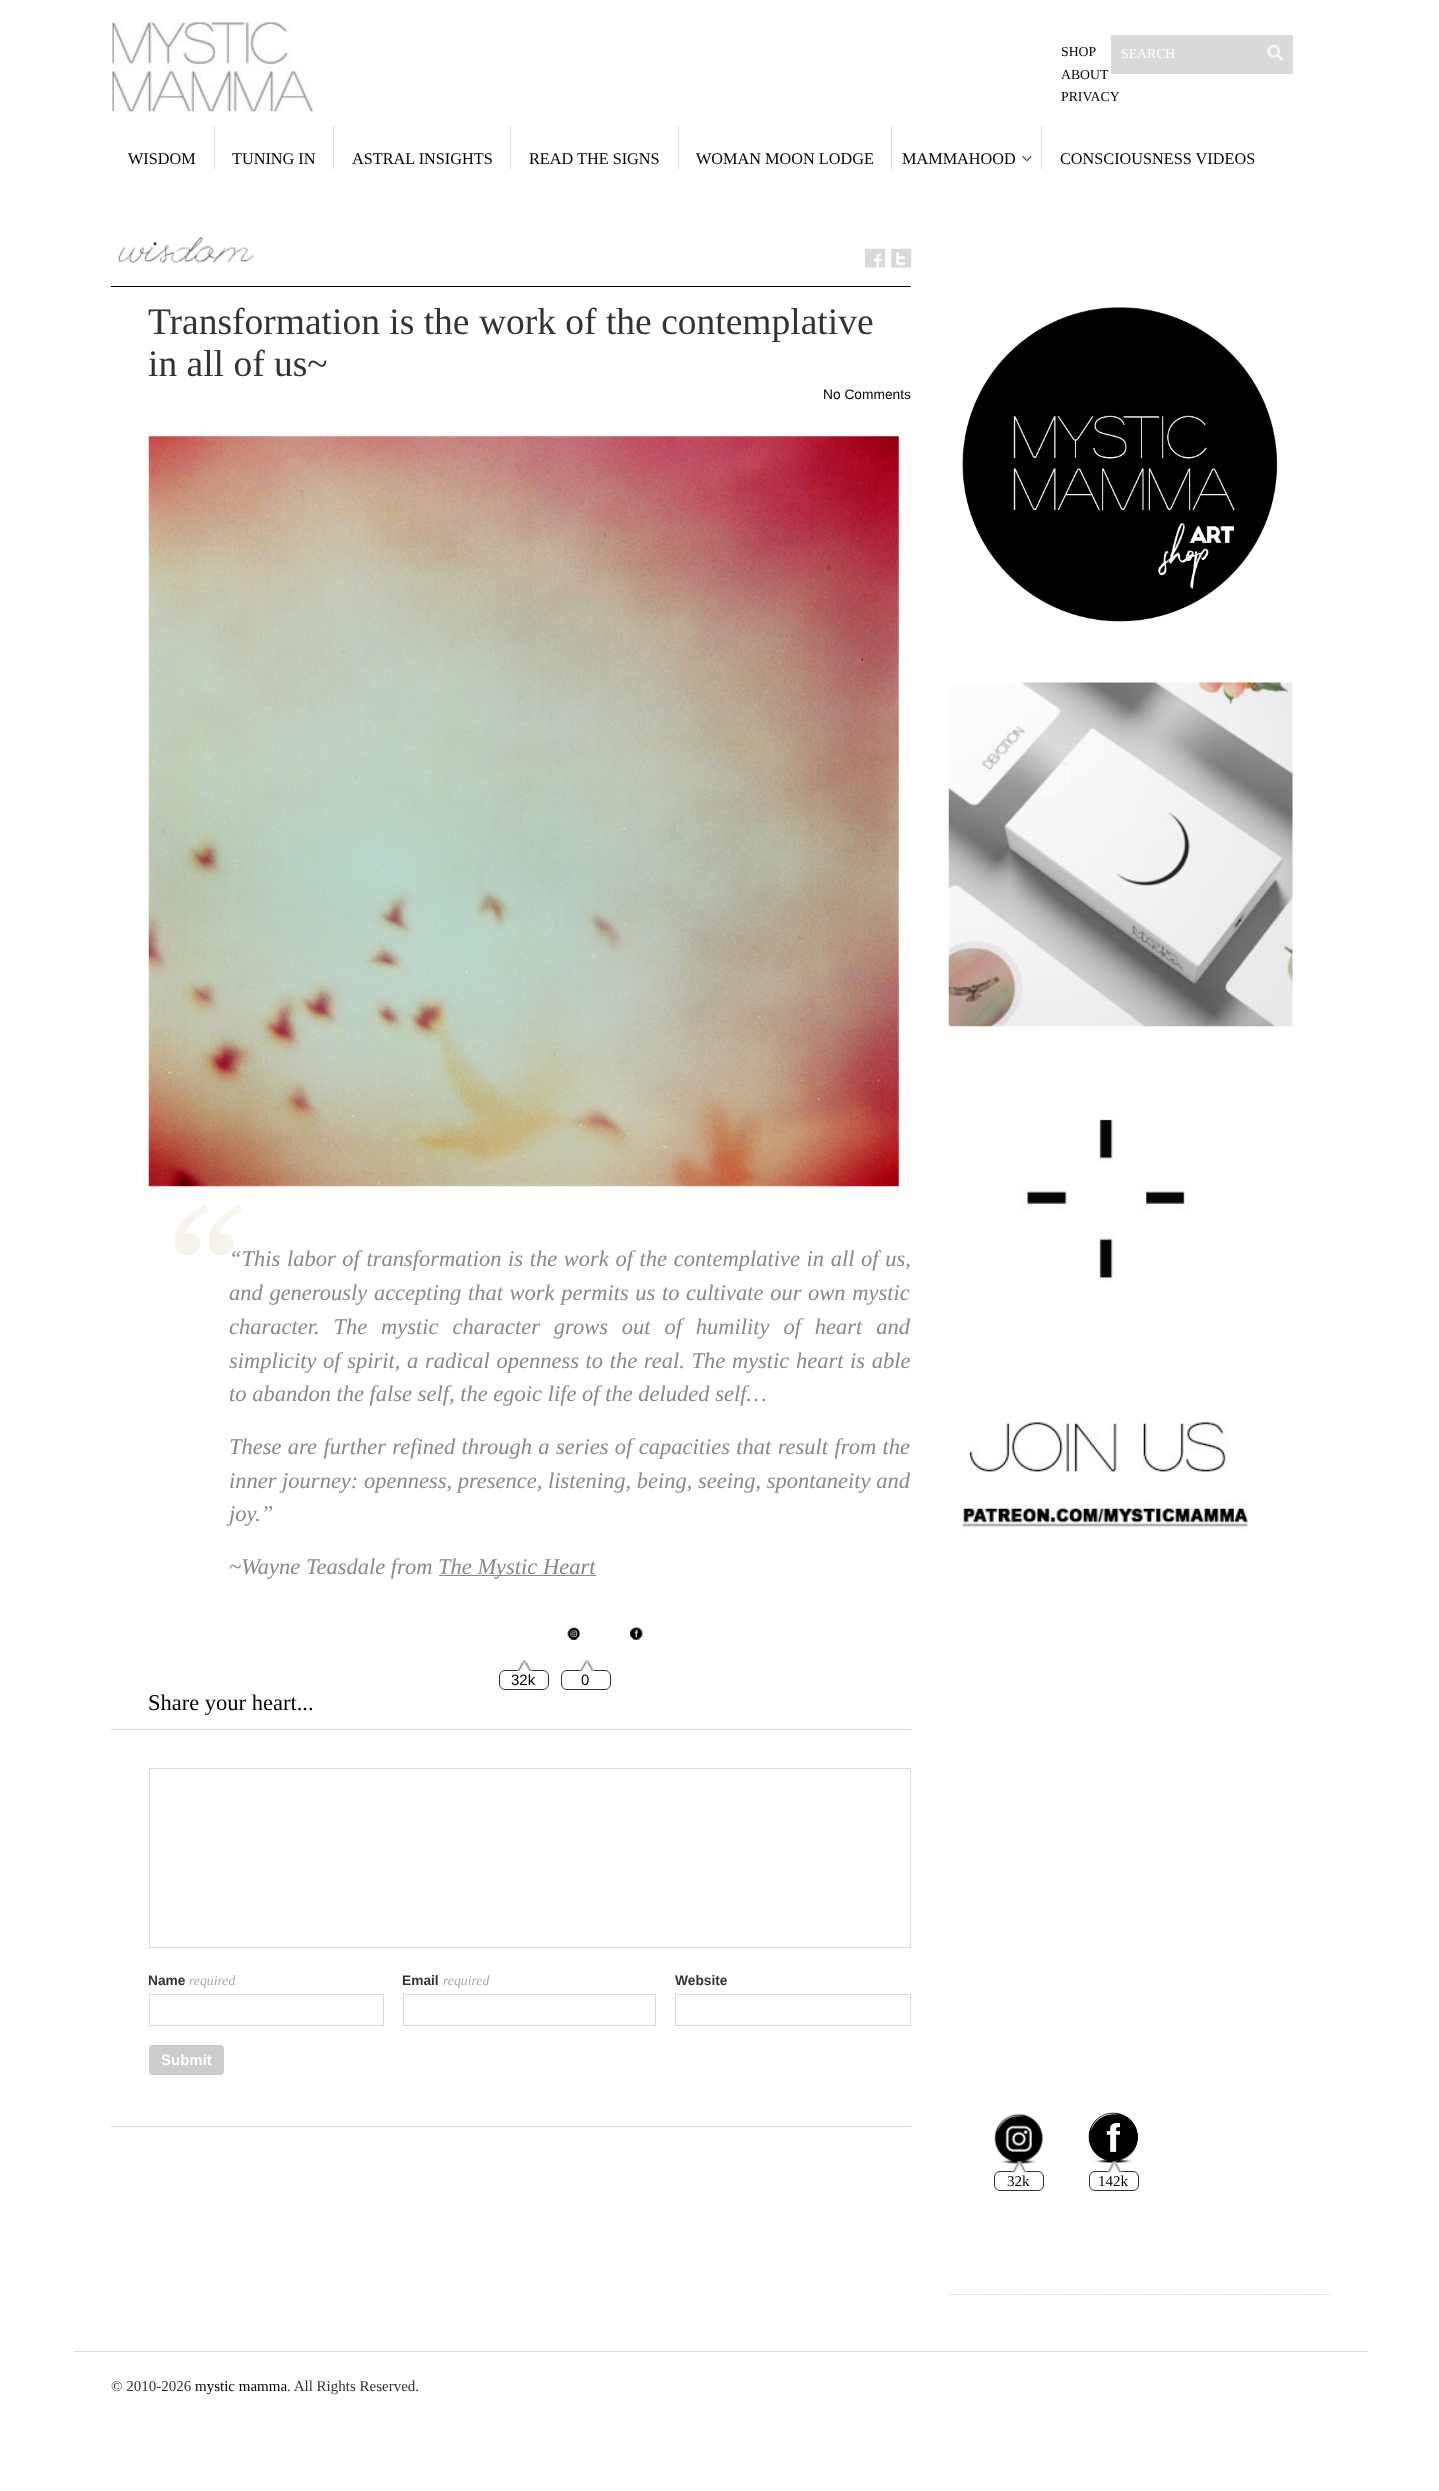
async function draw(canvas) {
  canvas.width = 1439
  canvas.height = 2491
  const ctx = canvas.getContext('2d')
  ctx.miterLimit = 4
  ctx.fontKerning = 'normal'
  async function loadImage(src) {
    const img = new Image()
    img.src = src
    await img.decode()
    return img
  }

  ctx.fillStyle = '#fff'
  ctx.fillRect(0, 0, 1439, 2491)
  ctx.drawImage(await loadImage('image0.png'), 112, 22, 201, 90)
  ctx.font = '13.75px Liberation Serif'
  ctx.fillStyle = '#000'
  ctx.fillText('SHOP', 1061, 56)
  ctx.fillText('ABOUT', 1061, 79)
  ctx.fillText('PRIVACY', 1061, 101)
  ctx.fillStyle = '#dadada'
  ctx.fillRect(1111, 35, 182, 39)
  ctx.fillStyle = '#fff'
  ctx.fillText('SEARCH', 1121, 58)
  ctx.drawImage(await loadImage('image1.png'), 1267, 45, 16, 15)
  ctx.fillStyle = '#d9d9d9'
  ctx.fillRect(214, 126, 1, 43)
  ctx.font = '16.25px Liberation Serif'
  ctx.fillStyle = '#000'
  ctx.fillText('WISDOM', 128, 164)
  ctx.fillStyle = '#d9d9d9'
  ctx.fillRect(333, 126, 1, 43)
  ctx.fillStyle = '#000'
  ctx.fillText('TUNING IN', 232, 164)
  ctx.fillStyle = '#d9d9d9'
  ctx.fillRect(510, 126, 1, 43)
  ctx.fillStyle = '#000'
  ctx.fillText('ASTRAL INSIGHTS', 352, 164)
  ctx.fillStyle = '#d9d9d9'
  ctx.fillRect(678, 126, 1, 43)
  ctx.fillStyle = '#000'
  ctx.fillText('READ THE SIGNS', 529, 164)
  ctx.fillStyle = '#d9d9d9'
  ctx.fillRect(891, 126, 1, 43)
  ctx.fillStyle = '#000'
  ctx.fillText('WOMAN MOON LODGE', 696, 164)
  ctx.fillStyle = '#d9d9d9'
  ctx.fillRect(1041, 126, 1, 43)
  ctx.drawImage(await loadImage('image2.png'), 1022, 156, 10, 6)
  ctx.fillStyle = '#000'
  ctx.fillText('MAMMAHOOD', 902, 164)
  ctx.fillText('CONSCIOUSNESS VIDEOS', 1060, 164)
  ctx.fillRect(111, 286, 800, 1)
  ctx.drawImage(await loadImage('image3.png'), 118, 237, 136, 26)
  ctx.drawImage(await loadImage('image4.png'), 865, 248, 20, 20)
  ctx.drawImage(await loadImage('image5.png'), 891, 248, 21, 20)
  ctx.fillStyle = '#d9d9d9'
  ctx.fillRect(111, 2126, 800, 1)
  ctx.font = '37.5px Liberation Serif'
  ctx.fillStyle = '#333'
  ctx.fillText('Transformation is the work of the contemplative', 148, 334)
  ctx.fillText('in all of us~', 148, 376)
  ctx.font = '13.75px Liberation Sans'
  ctx.fillStyle = '#000'
  ctx.fillText('No Comments', 823, 399)
  ctx.drawImage(await loadImage('image6.png'), 148, 436, 751, 751)
  ctx.drawImage(await loadImage('image7.png'), 174, 1205, 68, 50)
  ctx.wordSpacing = '1px'
  ctx.font = 'italic 22.5px Liberation Serif'
  ctx.fillStyle = '#888'
  ctx.fillText('“This labor of transformation is the work of the contemplative in all of us,', 229, 1266)
  ctx.fillText('and generously accepting that work permits us to cultivate our own mystic', 229, 1300)
  ctx.wordSpacing = '8.25px'
  ctx.fillText('character. The mystic character grows out of humility of heart and', 229, 1334)
  ctx.wordSpacing = '1px'
  ctx.fillText('simplicity of spirit, a radical openness to the real. The mystic heart is able', 229, 1368)
  ctx.wordSpacing = '0px'
  ctx.fillText('to abandon the false self, the egoic life of the deluded self…', 229, 1401)
  ctx.wordSpacing = '0.75px'
  ctx.fillText('These are further refined through a series of capacities that result from the', 229, 1454)
  ctx.wordSpacing = '0px'
  ctx.fillText('inner journey: openness, presence, listening, being, seeing, spontaneity and', 229, 1488)
  ctx.fillText('joy.”', 229, 1521)
  ctx.fillText('~Wayne Teasdale from', 229, 1574)
  ctx.fillRect(439, 1575, 157, 1)
  ctx.fillText('The Mystic Heart', 438, 1574)
  ctx.drawImage(await loadImage('image8.png'), 567, 1627, 13, 13)
  ctx.beginPath()
  ctx.roundRect(499.5, 1670.5, 49, 19, 5.5)
  ctx.strokeStyle = '#333'
  ctx.stroke()
  ctx.drawImage(await loadImage('image9.png'), 514, 1660, 19, 11)
  ctx.font = '15px Liberation Sans'
  ctx.fillStyle = '#000'
  ctx.fillText('32k', 511, 1685)
  ctx.drawImage(await loadImage('image10.png'), 630, 1627, 13, 13)
  ctx.beginPath()
  ctx.roundRect(561.5, 1670.5, 49, 19, 5.5)
  ctx.stroke()
  ctx.drawImage(await loadImage('image11.png'), 577, 1660, 18, 12)
  ctx.fillText('0', 581, 1685)
  ctx.fillStyle = '#d9d9d9'
  ctx.fillRect(111, 1729, 800, 1)
  ctx.font = '22.5px Liberation Serif'
  ctx.fillStyle = '#000'
  ctx.fillText('Share your heart...', 148, 1710)
  ctx.strokeStyle = '#d9d9d9'
  ctx.strokeRect(149.5, 1768.5, 761, 179)
  ctx.font = 'bold 13.75px Liberation Sans'
  ctx.fillStyle = '#333'
  ctx.fillText('Name', 148, 1985)
  ctx.font = 'italic 13.75px Liberation Serif'
  ctx.fillStyle = '#aaa9a9'
  ctx.fillText('required', 189, 1985)
  ctx.strokeRect(149.5, 1994.5, 234, 31)
  ctx.font = 'bold 13.75px Liberation Sans'
  ctx.fillStyle = '#333'
  ctx.fillText('Email', 402, 1985)
  ctx.font = 'italic 13.75px Liberation Serif'
  ctx.fillStyle = '#aaa9a9'
  ctx.fillText('required', 443, 1985)
  ctx.strokeRect(403.5, 1994.5, 252, 31)
  ctx.font = 'bold 13.75px Liberation Sans'
  ctx.fillStyle = '#333'
  ctx.fillText('Website', 675, 1985)
  ctx.strokeRect(675.5, 1994.5, 235, 31)
  ctx.fillStyle = '#ccc'
  ctx.beginPath()
  ctx.roundRect(149, 2045, 75, 30, 4)
  ctx.fill()
  ctx.font = 'bold 15px Liberation Sans'
  ctx.fillStyle = '#fff'
  ctx.fillText('Submit', 161, 2065)
  ctx.beginPath()
  ctx.moveTo(949, 2294.5)
  ctx.lineTo(1330, 2294.5)
  ctx.strokeStyle = '#ccc'
  ctx.lineWidth = 1.2
  ctx.setLineDash([1.25, 1.25])
  ctx.stroke()
  ctx.drawImage(await loadImage('image12.png'), 962, 307, 316, 315)
  ctx.drawImage(await loadImage('image13.png'), 948, 682, 345, 345)
  ctx.drawImage(await loadImage('image14.png'), 959, 1113, 290, 419)
  ctx.drawImage(await loadImage('image15.png'), 994, 2113, 49, 51)
  ctx.beginPath()
  ctx.roundRect(994.5, 2171.5, 49, 19, 5.5)
  ctx.strokeStyle = '#333'
  ctx.lineWidth = 1
  ctx.setLineDash([])
  ctx.stroke()
  ctx.drawImage(await loadImage('image16.png'), 1012, 2161, 16, 12)
  ctx.font = '15px Liberation Serif'
  ctx.fillStyle = '#000'
  ctx.fillText('32k', 1007, 2186)
  ctx.drawImage(await loadImage('image17.png'), 1088, 2112, 50, 51)
  ctx.beginPath()
  ctx.roundRect(1089.5, 2171.5, 49, 19, 5.5)
  ctx.stroke()
  ctx.drawImage(await loadImage('image18.png'), 1107, 2161, 16, 12)
  ctx.fillText('142k', 1098, 2186)
  ctx.fillStyle = '#d9d9d9'
  ctx.fillRect(74, 2351, 1294, 1)
  ctx.fillStyle = '#333'
  ctx.fillText('© 2010-2026', 111, 2391)
  ctx.fillStyle = '#000'
  ctx.fillText('mystic mamma', 195, 2391)
  ctx.fillStyle = '#333'
  ctx.fillText('. All Rights Reserved.', 287, 2391)
}

draw(document.querySelector('canvas'))
